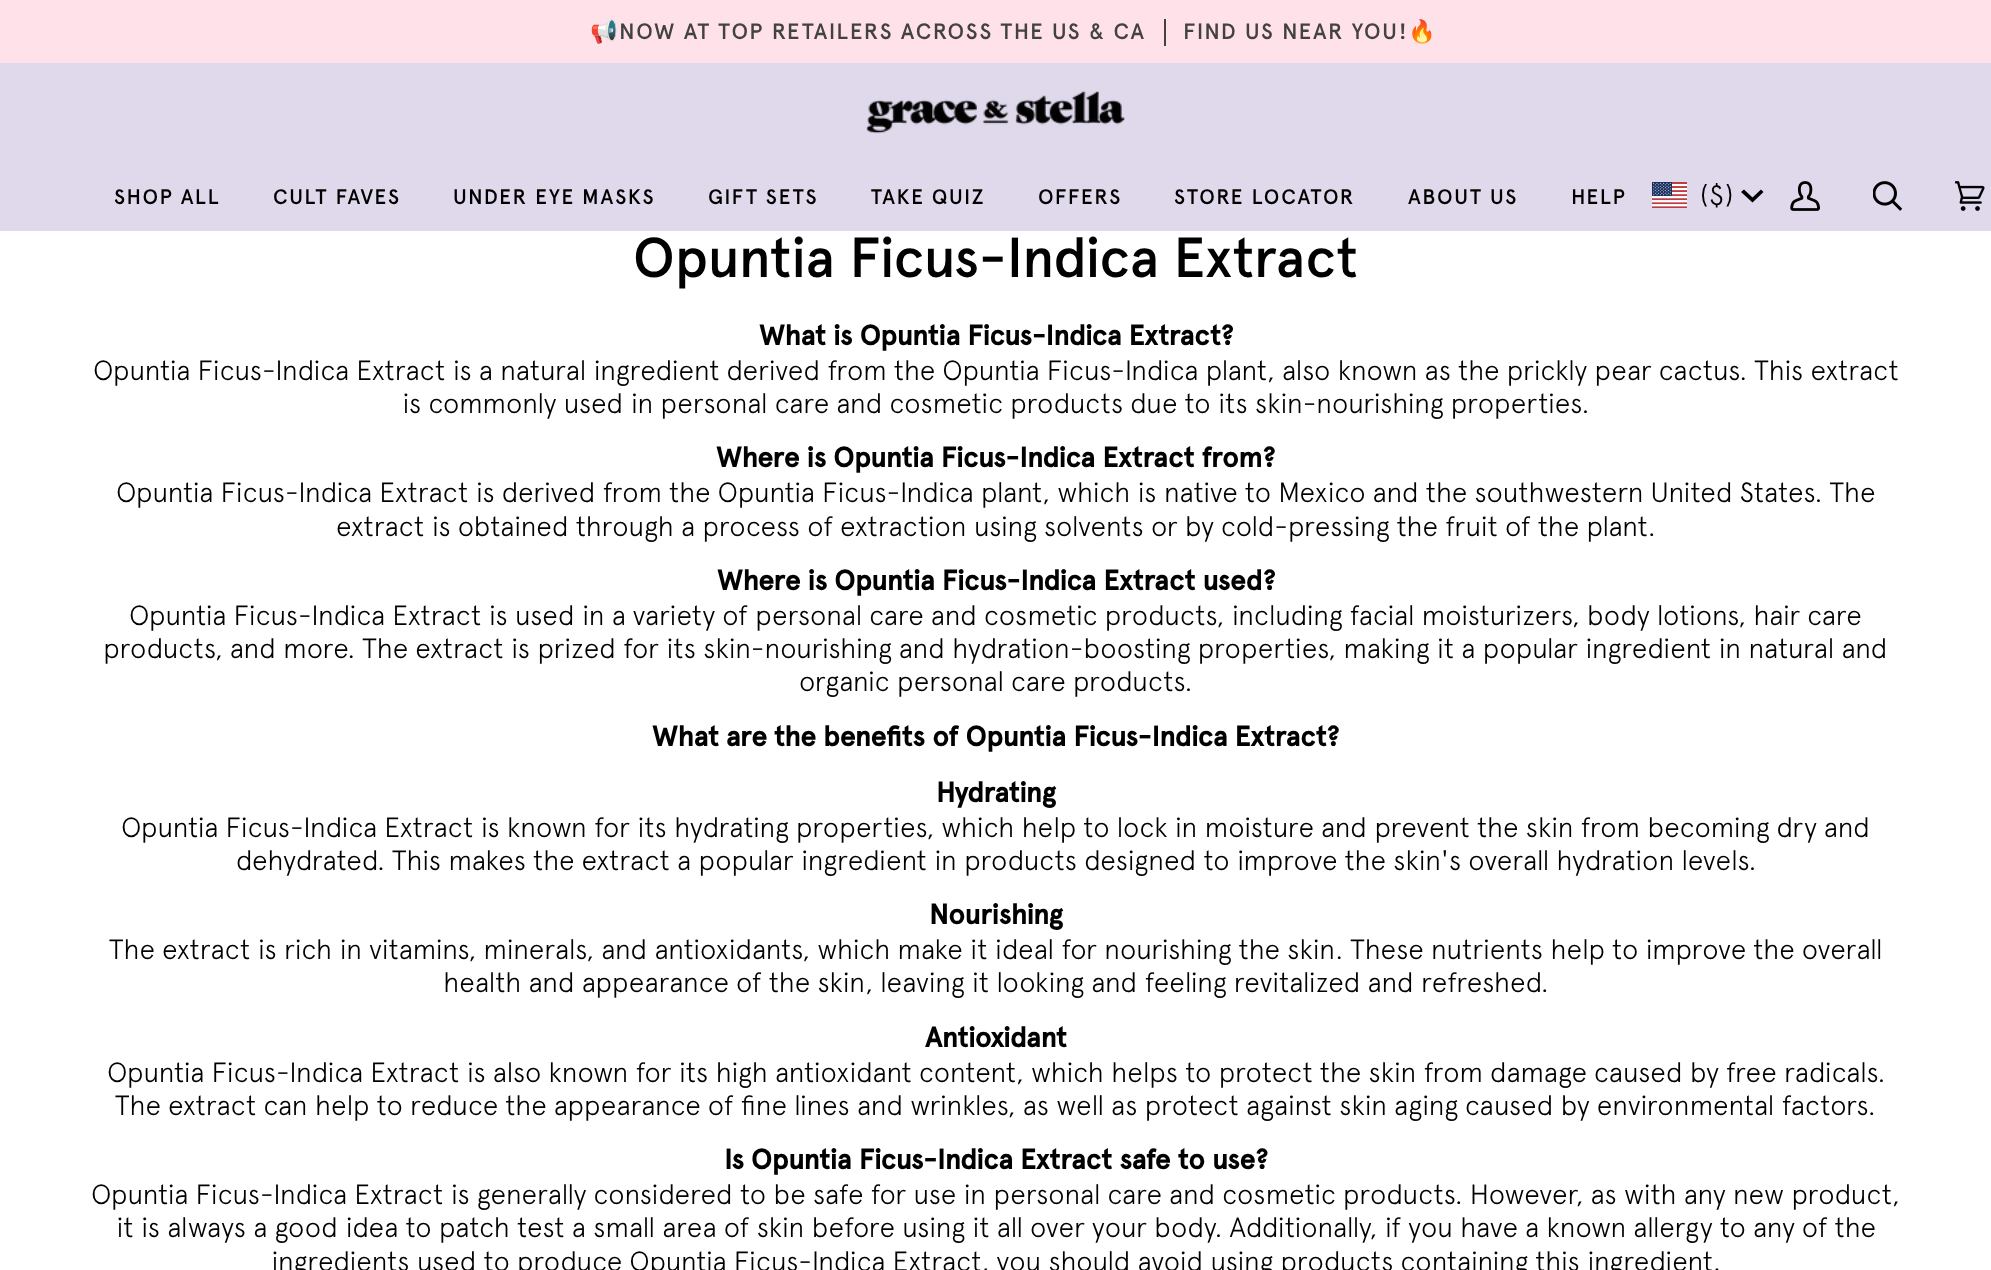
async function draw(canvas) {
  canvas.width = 1991
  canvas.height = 1270
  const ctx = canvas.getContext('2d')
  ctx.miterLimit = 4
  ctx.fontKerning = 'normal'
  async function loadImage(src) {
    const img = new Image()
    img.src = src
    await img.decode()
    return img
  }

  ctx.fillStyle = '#fff'
  ctx.fillRect(0, 0, 1991, 1270)
  ctx.fillStyle = '#ffe1ea'
  ctx.fillRect(0, 0, 1991, 63)
  ctx.save()
  ctx.beginPath()
  ctx.rect(0, 19, 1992, 27)
  ctx.clip()
  ctx.letterSpacing = '1.75px'
  ctx.font = '22.3px Noto Color Emoji'
  ctx.fillStyle = '#424242'
  ctx.fillText('📢', 590, 39)
  ctx.restore()
  ctx.letterSpacing = '1.75px'
  ctx.font = '500 22.3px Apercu'
  ctx.fillStyle = '#424242'
  ctx.fillText('NOW AT TOP RETAILERS ACROSS THE US & CA', 619, 39)
  ctx.fillText('FIND US NEAR YOU!', 1183, 39)
  ctx.fillRect(1164, 19, 2, 27)
  ctx.save()
  ctx.beginPath()
  ctx.rect(0, 19, 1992, 27)
  ctx.clip()
  ctx.font = '22.3px Noto Color Emoji'
  ctx.fillText('🔥', 1408, 39)
  ctx.restore()
  ctx.fillStyle = '#e0d9ec'
  ctx.fillRect(0, 63, 1991, 168)
  ctx.drawImage(await loadImage('image0.png'), 866, 91, 259, 43)
  ctx.font = '500 21px Apercu'
  ctx.fillStyle = '#000'
  ctx.fillText('SHOP ALL', 114, 204)
  ctx.fillText('CULT FAVES', 273, 204)
  ctx.fillText('UNDER EYE MASKS', 453, 204)
  ctx.fillText('GIFT SETS', 708, 204)
  ctx.fillText('TAKE QUIZ', 871, 204)
  ctx.fillText('OFFERS', 1038, 204)
  ctx.fillText('STORE LOCATOR', 1174, 204)
  ctx.fillText('ABOUT US', 1408, 204)
  ctx.fillText('HELP', 1571, 204)
  ctx.drawImage(await loadImage('image1.png'), 1652, 182, 35, 26)
  ctx.font = '300 28px Apercu'
  ctx.fillText('($)', 1700, 205)
  ctx.beginPath()
  ctx.moveTo(1741, 192)
  ctx.lineTo(1744, 189.5)
  ctx.lineTo(1752.5, 197.5)
  ctx.lineTo(1761, 189.5)
  ctx.lineTo(1763.5, 192)
  ctx.lineTo(1752.5, 202.5)
  ctx.closePath()
  ctx.fill('evenodd')
  ctx.drawImage(await loadImage('image2.png'), 1790, 181, 30, 30)
  ctx.drawImage(await loadImage('image3.png'), 1873, 181, 29, 30)
  ctx.drawImage(await loadImage('image4.png'), 1955, 181, 30, 30)
  ctx.letterSpacing = '0px'
  ctx.font = '500 56.25px Apercu'
  ctx.fillText('Opuntia Ficus-Indica Extract', 633, 277)
  ctx.font = 'bold 28px Apercu'
  ctx.fillText('What is Opuntia Ficus-Indica Extract?', 759, 345)
  ctx.font = '300 28px Apercu'
  ctx.fillText('Opuntia Ficus-Indica Extract is a natural ingredient derived from the Opuntia Ficus-Indica plant, also known as the prickly pear cactus. This extract', 93, 380)
  ctx.fillText('is commonly used in personal care and cosmetic products due to its skin-nourishing properties.', 402, 413)
  ctx.font = 'bold 28px Apercu'
  ctx.fillText('Where is Opuntia Ficus-Indica Extract from?', 716, 467)
  ctx.font = '300 28px Apercu'
  ctx.fillText('Opuntia Ficus-Indica Extract is derived from the Opuntia Ficus-Indica plant, which is native to Mexico and the southwestern United States. The', 116, 502)
  ctx.fillText('extract is obtained through a process of extraction using solvents or by cold-pressing the fruit of the plant.', 336, 536)
  ctx.font = 'bold 28px Apercu'
  ctx.fillText('Where is Opuntia Ficus-Indica Extract used?', 717, 590)
  ctx.font = '300 28px Apercu'
  ctx.fillText('Opuntia Ficus-Indica Extract is used in a variety of personal care and cosmetic products, including facial moisturizers, body lotions, hair care', 129, 625)
  ctx.fillText('products, and more. The extract is prized for its skin-nourishing and hydration-boosting properties, making it a popular ingredient in natural and', 103, 658)
  ctx.fillText('organic personal care products.', 799, 691)
  ctx.font = 'bold 28px Apercu'
  ctx.fillText('What are the benefits of Opuntia Ficus-Indica Extract?', 652, 746)
  ctx.fillText('Hydrating', 936, 802)
  ctx.font = '300 28px Apercu'
  ctx.fillText('Opuntia Ficus-Indica Extract is known for its hydrating properties, which help to lock in moisture and prevent the skin from becoming dry and', 121, 837)
  ctx.fillText('dehydrated. This makes the extract a popular ingredient in products designed to improve the skin\'s overall hydration levels.', 236, 870)
  ctx.font = 'bold 28px Apercu'
  ctx.fillText('Nourishing', 929, 924)
  ctx.font = '300 28px Apercu'
  ctx.fillText('The extract is rich in vitamins, minerals, and antioxidants, which make it ideal for nourishing the skin. These nutrients help to improve the overall', 109, 959)
  ctx.fillText('health and appearance of the skin, leaving it looking and feeling revitalized and refreshed.', 443, 992)
  ctx.font = 'bold 28px Apercu'
  ctx.fillText('Antioxidant', 925, 1047)
  ctx.font = '300 28px Apercu'
  ctx.fillText('Opuntia Ficus-Indica Extract is also known for its high antioxidant content, which helps to protect the skin from damage caused by free radicals.', 107, 1082)
  ctx.fillText('The extract can help to reduce the appearance of fine lines and wrinkles, as well as protect against skin aging caused by environmental factors.', 115, 1115)
  ctx.font = 'bold 28px Apercu'
  ctx.fillText('Is Opuntia Ficus-Indica Extract safe to use?', 724, 1169)
  ctx.font = '300 28px Apercu'
  ctx.fillText('Opuntia Ficus-Indica Extract is generally considered to be safe for use in personal care and cosmetic products. However, as with any new product,', 91, 1204)
  ctx.fillText('it is always a good idea to patch test a small area of skin before using it all over your body. Additionally, if you have a known allergy to any of the', 116, 1237)
  ctx.fillText('ingredients used to produce Opuntia Ficus-Indica Extract, you should avoid using products containing this ingredient.', 271, 1271)
}

draw(document.querySelector('canvas'))
